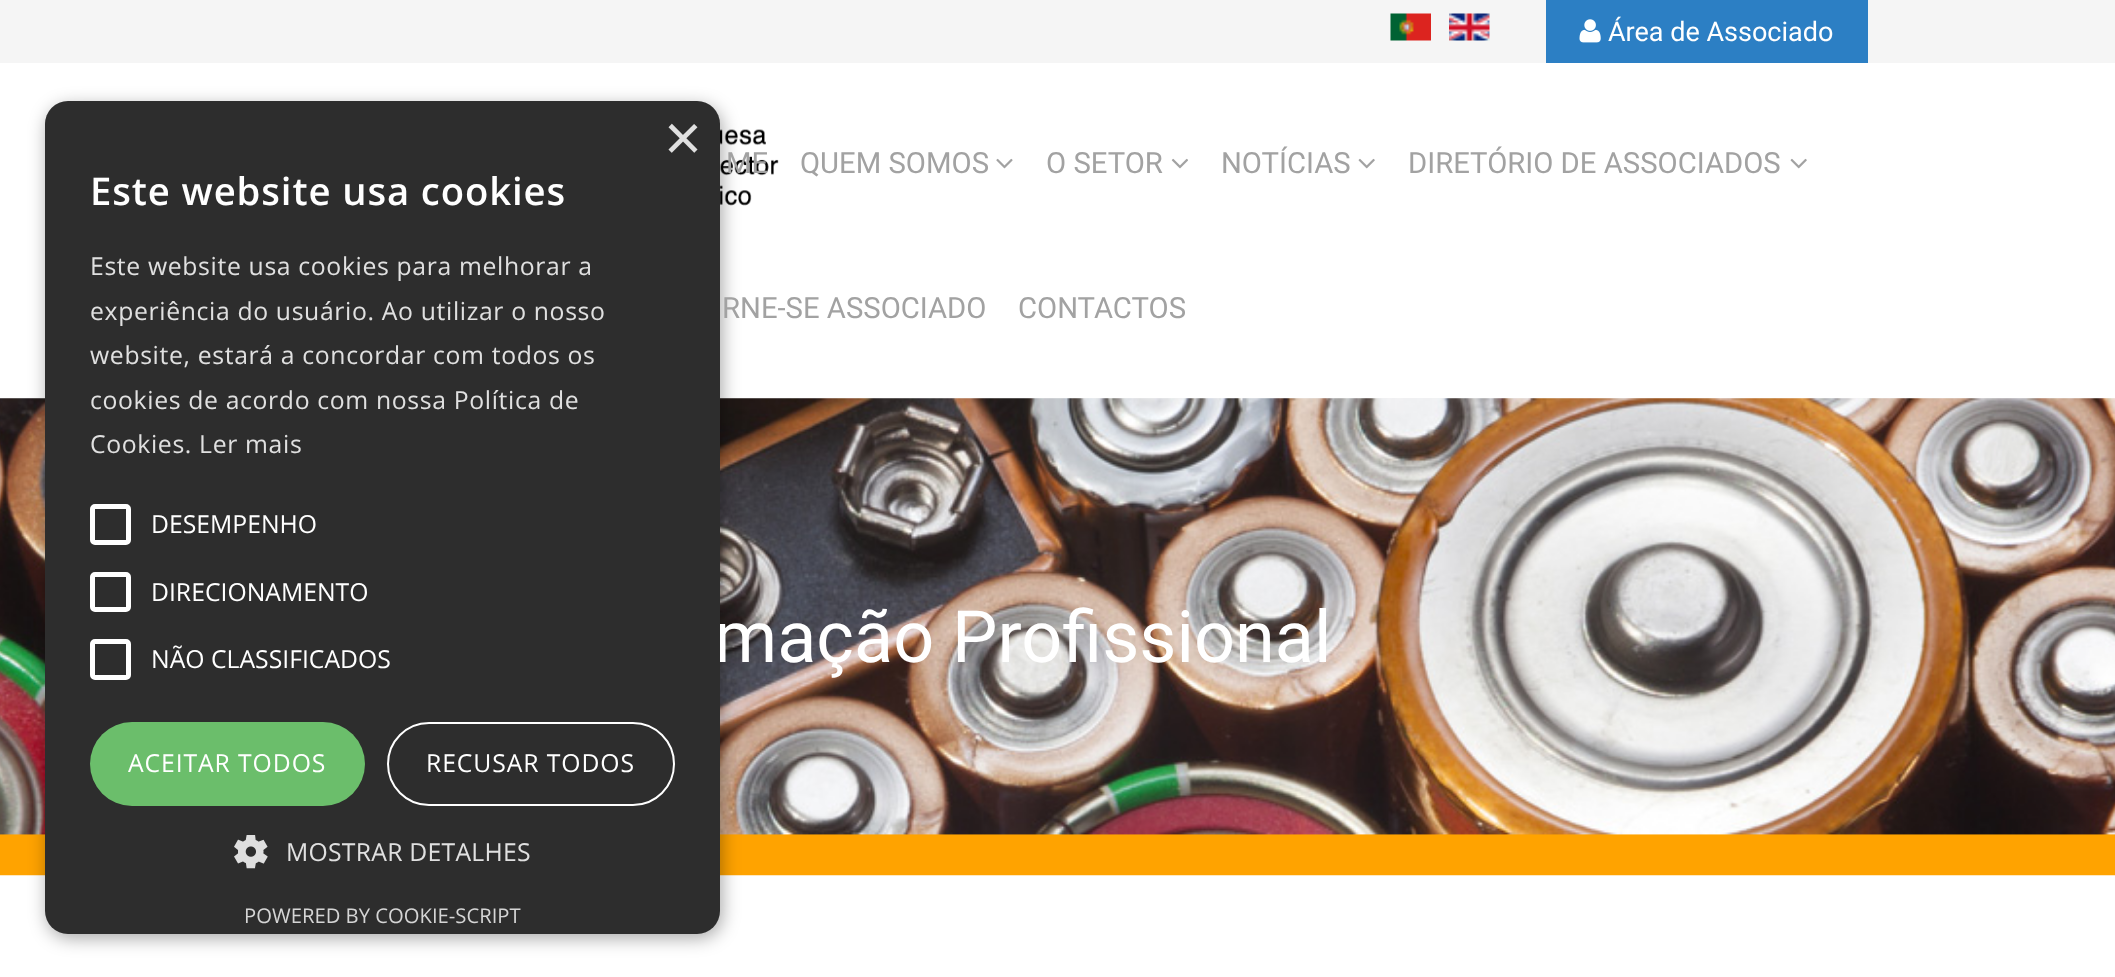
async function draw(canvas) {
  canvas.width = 2115
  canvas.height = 977
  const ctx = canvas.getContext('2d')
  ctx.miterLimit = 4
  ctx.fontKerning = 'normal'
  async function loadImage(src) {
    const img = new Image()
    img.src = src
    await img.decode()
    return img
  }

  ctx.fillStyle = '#fff'
  ctx.fillRect(0, 0, 2115, 977)
  ctx.fillStyle = '#f5f5f5'
  ctx.fillRect(0, 0, 2115, 63)
  ctx.save()
  ctx.beginPath()
  ctx.rect(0, 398, 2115, 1)
  ctx.clip()
  ctx.fillStyle = '#0000000d'
  ctx.filter = 'blur(3.5px)'
  ctx.beginPath()
  ctx.rect(0, 70, 2115, 335)
  ctx.fill()
  ctx.filter = 'none'
  ctx.restore()
  ctx.drawImage(await loadImage('image4.png'), 720, 129, 59, 77)
  ctx.drawImage(await loadImage('image8.png'), 0, 398, 2115, 478)
  ctx.fillStyle = '#00000059'
  ctx.filter = 'blur(9px)'
  ctx.beginPath()
  ctx.roundRect(47, 106, 675, 832, 23)
  ctx.fill()
  ctx.filter = 'none'
  ctx.font = '72px Roboto'
  ctx.fillStyle = '#fff'
  ctx.fillText('mação Profissional', 714, 662)
  ctx.fillStyle = '#2d2d2d'
  ctx.beginPath()
  ctx.roundRect(45, 101, 675, 833, 23)
  ctx.fill()
  ctx.font = '65px Liberation Sans'
  ctx.fillStyle = '#e0e0e0'
  ctx.fillText('×', 664, 160)
  ctx.letterSpacing = '0.9px'
  ctx.font = '600 38.25px Open Sans'
  ctx.fillStyle = '#fff'
  ctx.fillText('Este website usa cookies', 90, 205)
  ctx.letterSpacing = '0.65px'
  ctx.font = '24.75px Open Sans'
  ctx.fillStyle = '#e0e0e0'
  ctx.fillText('Este website usa cookies para melhorar a', 90, 275)
  ctx.fillText('experiência do usuário. Ao utilizar o nosso', 90, 320)
  ctx.fillText('website, estará a concordar com todos os', 90, 364)
  ctx.fillText('cookies de acordo com nossa Política de', 90, 409)
  ctx.fillText('Cookies. Ler mais', 90, 453)
  ctx.beginPath()
  ctx.roundRect(92.5, 506.5, 36, 36, 2.5)
  ctx.strokeStyle = '#fff'
  ctx.lineWidth = 5
  ctx.stroke()
  ctx.letterSpacing = '0px'
  ctx.fillStyle = '#fff'
  ctx.fillText('DESEMPENHO', 151, 533)
  ctx.beginPath()
  ctx.roundRect(92.5, 574.5, 36, 35, 2.5)
  ctx.stroke()
  ctx.fillText('DIRECIONAMENTO', 151, 601)
  ctx.beginPath()
  ctx.roundRect(92.5, 641.5, 36, 36, 2.5)
  ctx.stroke()
  ctx.fillText('NÃO CLASSIFICADOS', 151, 668)
  ctx.fillStyle = '#6bbe6b'
  ctx.beginPath()
  ctx.roundRect(90, 722, 275, 84, 42)
  ctx.fill()
  ctx.letterSpacing = '0.9px'
  ctx.fillStyle = '#fff'
  ctx.fillText('ACEITAR TODOS', 128, 772)
  ctx.beginPath()
  ctx.roundRect(388, 723, 286, 82, 41)
  ctx.lineWidth = 2
  ctx.stroke()
  ctx.fillText('RECUSAR TODOS', 426, 772)
  ctx.drawImage(await loadImage('image0.png'), 234, 835, 34, 34)
  ctx.letterSpacing = '0.25px'
  ctx.fillStyle = '#e0e0e0'
  ctx.fillText('MOSTRAR DETALHES', 286, 861)
  ctx.letterSpacing = '0px'
  ctx.font = '20.25px Open Sans'
  ctx.fillStyle = '#d5d5d5'
  ctx.fillText('POWERED BY COOKIE-SCRIPT', 244, 923)
  ctx.drawImage(await loadImage('image1.png'), 1390, 13, 41, 28)
  ctx.drawImage(await loadImage('image2.png'), 1449, 13, 41, 28)
  ctx.fillStyle = '#2c7fc4'
  ctx.fillRect(1546, 0, 322, 63)
  ctx.drawImage(await loadImage('image3.png'), 1579, 19, 22, 24)
  ctx.font = '27px Roboto'
  ctx.fillStyle = '#fff'
  ctx.fillText('Área de Associado', 1608, 41)
  ctx.font = '29.25px Roboto'
  ctx.fillStyle = '#a2a2a2'
  ctx.fillText('ME', 726, 173)
  ctx.fillText('QUEM SOMOS', 800, 173)
  ctx.drawImage(await loadImage('image5.png'), 996, 158, 17, 11)
  ctx.fillText('O SETOR', 1046, 173)
  ctx.drawImage(await loadImage('image6.png'), 1171, 158, 17, 11)
  ctx.fillText('NOTÍCIAS', 1221, 173)
  ctx.drawImage(await loadImage('image7.png'), 1358, 158, 17, 11)
  ctx.fillText('DIRETÓRIO DE ASSOCIADOS', 1408, 173)
  ctx.drawImage(await loadImage('image7.png'), 1790, 158, 17, 11)
  ctx.fillText('RNE-SE ASSOCIADO', 722, 318)
  ctx.fillText('CONTACTOS', 1018, 318)
}

draw(document.querySelector('canvas'))
